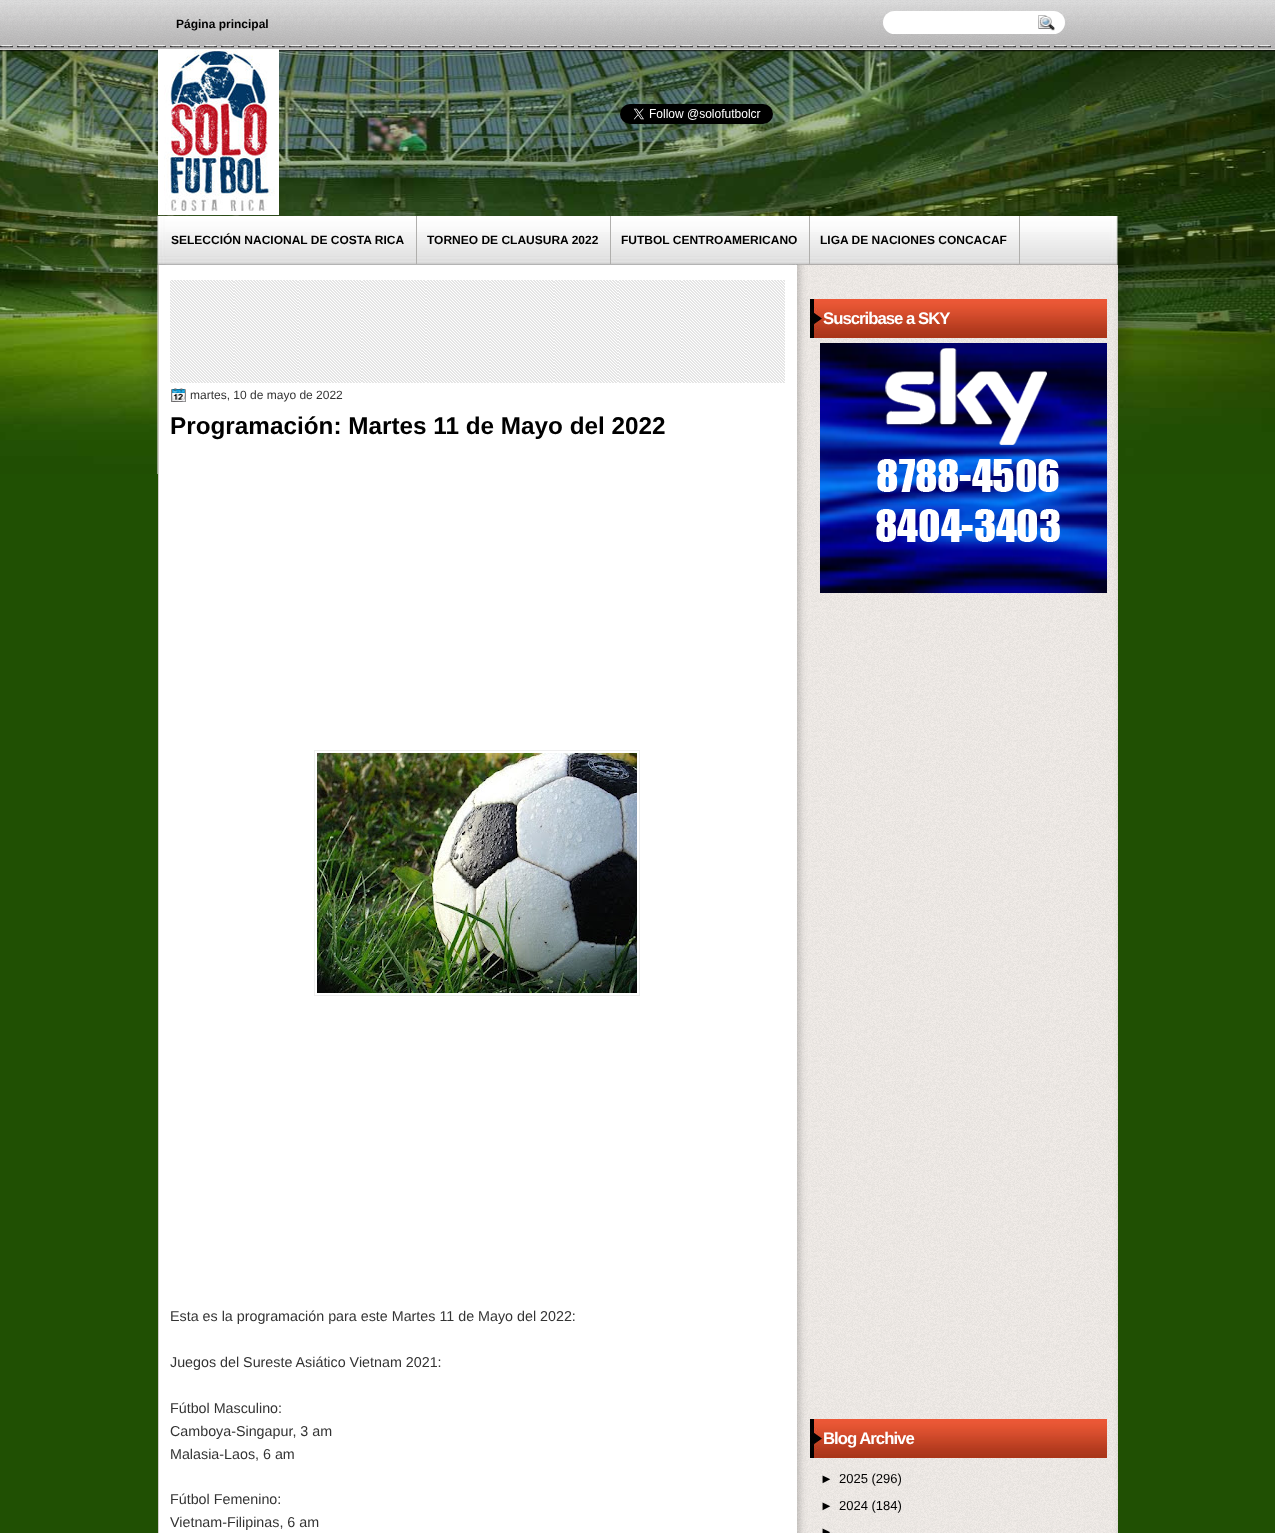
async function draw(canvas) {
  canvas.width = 1275
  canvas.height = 1533
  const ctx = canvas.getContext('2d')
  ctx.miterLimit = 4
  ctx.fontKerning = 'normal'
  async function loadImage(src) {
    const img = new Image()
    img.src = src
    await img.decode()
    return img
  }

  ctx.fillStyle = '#205003'
  ctx.fillRect(0, 0, 1275, 1533)
  ctx.drawImage(await loadImage('image0.png'), 0, 216, 1275, 258)
  ctx.drawImage(await loadImage('image1.png'), 0, 50, 1275, 166)
  ctx.drawImage(await loadImage('image2.png'), 0, 0, 1275, 52)
  ctx.font = 'bold 12px Liberation Sans'
  ctx.fillStyle = '#000'
  ctx.fillText('Página principal', 176, 28)
  ctx.fillStyle = '#fff'
  ctx.beginPath()
  ctx.roundRect(883, 11, 182, 23, 11.5)
  ctx.fill()
  ctx.drawImage(await loadImage('image3.png'), 1038, 15, 17, 16)
  ctx.drawImage(await loadImage('image4.png'), 158, 49, 121, 166)
  ctx.drawImage(await loadImage('image5.png'), 620, 104, 153, 20)
  ctx.fillStyle = '#b0afad'
  ctx.fillRect(416, 216, 1, 48)
  ctx.fillStyle = '#000'
  ctx.fillText('SELECCIÓN NACIONAL DE COSTA RICA', 171, 244)
  ctx.fillStyle = '#b0afad'
  ctx.fillRect(610, 216, 1, 48)
  ctx.fillStyle = '#000'
  ctx.fillText('TORNEO DE CLAUSURA 2022', 427, 244)
  ctx.fillStyle = '#b0afad'
  ctx.fillRect(809, 216, 1, 48)
  ctx.fillStyle = '#000'
  ctx.fillText('FUTBOL CENTROAMERICANO', 621, 244)
  ctx.fillStyle = '#b0afad'
  ctx.fillRect(1019, 216, 1, 48)
  ctx.fillStyle = '#000'
  ctx.fillText('LIGA DE NACIONES CONCACAF', 820, 244)
  ctx.drawImage(await loadImage('image6.png'), 158, 265, 960, 1268)
  ctx.drawImage(await loadImage('image7.png'), 170, 280, 615, 103)
  ctx.drawImage(await loadImage('image8.png'), 171, 388, 15, 14)
  ctx.font = '12px Liberation Sans'
  ctx.fillStyle = '#333'
  ctx.fillText('martes, 10 de mayo de 2022', 190, 399)
  ctx.font = 'bold 24.3px Liberation Sans'
  ctx.fillStyle = '#000'
  ctx.fillText('Programación: Martes 11 de Mayo del 2022', 170, 434)
  ctx.strokeStyle = '#eee'
  ctx.strokeRect(314.5, 750.5, 325, 245)
  ctx.drawImage(await loadImage('image9.png'), 317, 753, 320, 240)
  ctx.font = '14.3px Liberation Sans'
  ctx.fillStyle = '#333'
  ctx.fillText('Esta es la programación para este Martes 11 de Mayo del 2022:', 170, 1321)
  ctx.fillText('Juegos del Sureste Asiático Vietnam 2021:', 170, 1367)
  ctx.fillText('Fútbol Masculino:', 170, 1413)
  ctx.fillText('Camboya-Singapur, 3 am', 170, 1436)
  ctx.fillText('Malasia-Laos, 6 am', 170, 1459)
  ctx.fillText('Fútbol Femenino:', 170, 1504)
  ctx.fillText('Vietnam-Filipinas, 6 am', 170, 1527)
  ctx.drawImage(await loadImage('image10.png'), 810, 299, 297, 39)
  ctx.letterSpacing = '-1px'
  ctx.font = 'bold 16.75px Liberation Sans'
  ctx.fillStyle = '#fff'
  ctx.fillText('Suscribase a SKY', 823, 324)
  ctx.drawImage(await loadImage('image11.png'), 820, 343, 287, 250)
  ctx.drawImage(await loadImage('image10.png'), 810, 1419, 297, 39)
  ctx.fillText('Blog Archive', 823, 1444)
  ctx.letterSpacing = '0px'
  ctx.font = '13px Liberation Sans'
  ctx.fillStyle = '#000'
  ctx.fillText('►', 820, 1483)
  ctx.fillText('2025 (296)', 839, 1483)
  ctx.fillText('►', 820, 1510)
  ctx.fillText('2024 (184)', 839, 1510)
  ctx.fillText('►', 820, 1536)
}

draw(document.querySelector('canvas'))
